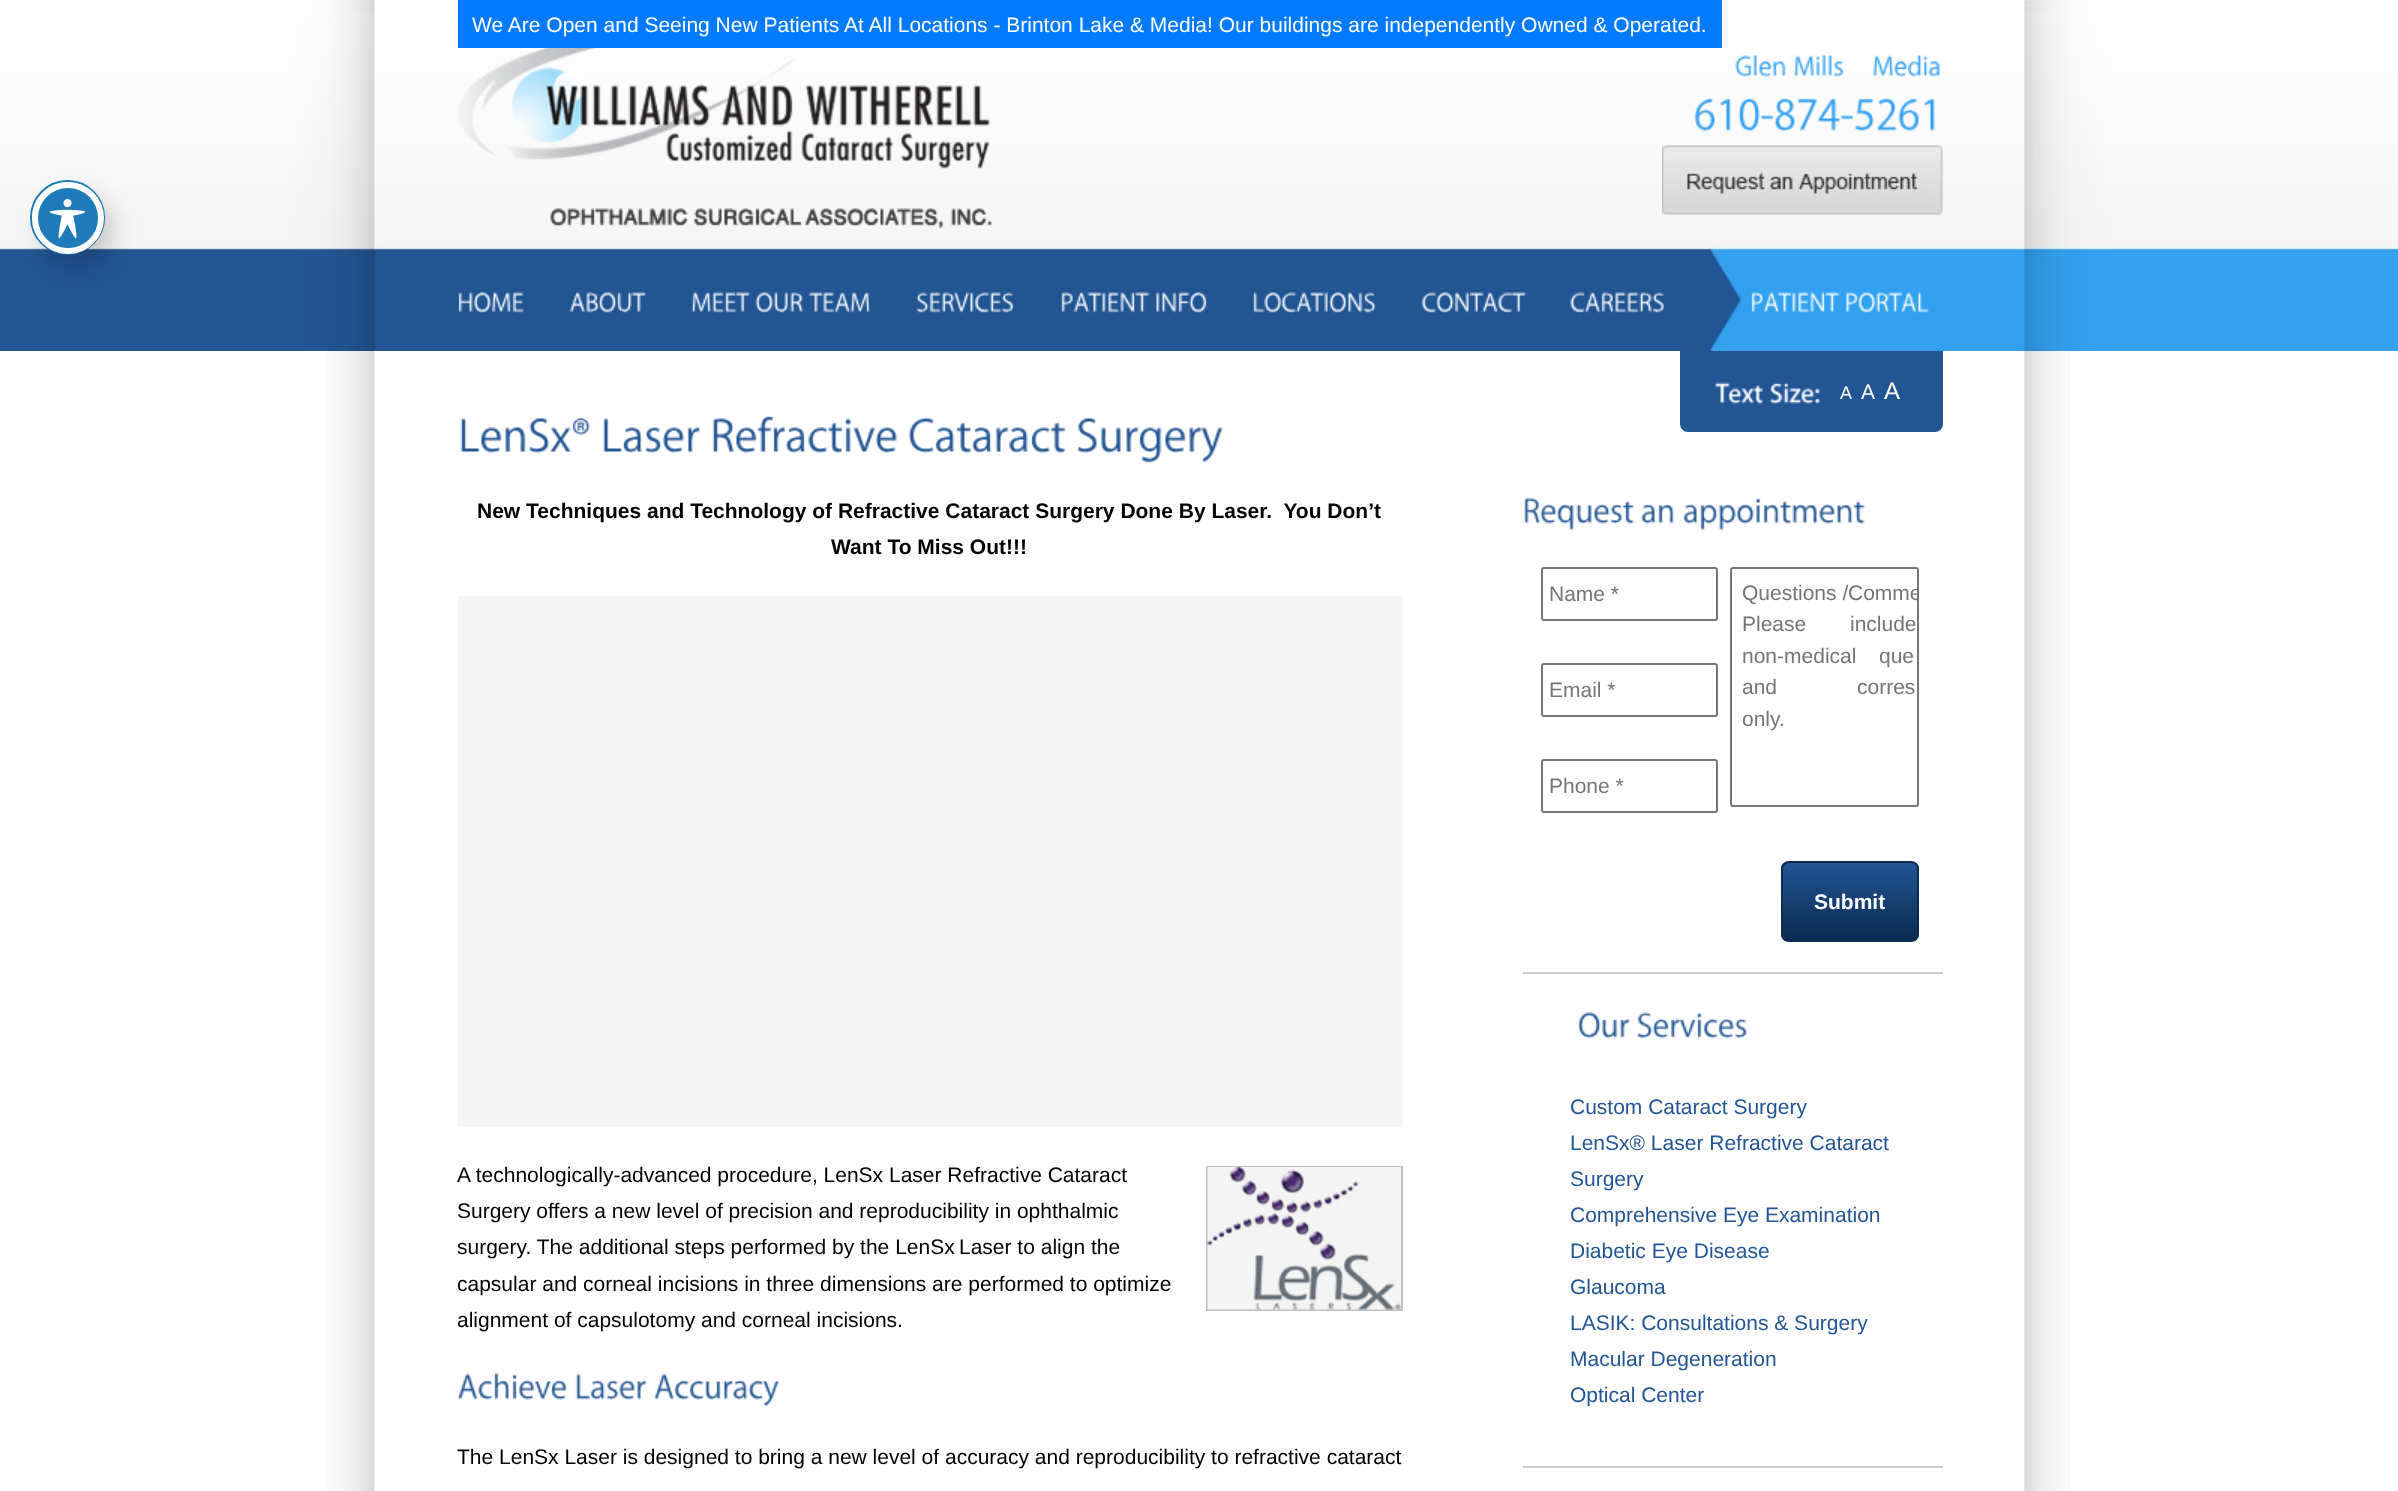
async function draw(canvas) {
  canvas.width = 2398
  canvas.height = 1491
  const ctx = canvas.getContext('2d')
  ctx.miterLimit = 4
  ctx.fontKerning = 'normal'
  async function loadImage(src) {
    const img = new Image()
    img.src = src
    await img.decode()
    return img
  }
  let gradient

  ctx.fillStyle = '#fff'
  ctx.fillRect(0, 0, 2398, 1491)
  ctx.drawImage(await loadImage('image0.png'), 0, 0, 2398, 351)
  ctx.fillStyle = '#007bff'
  ctx.fillRect(458, 0, 1264, 48)
  ctx.font = '21px Liberation Sans'
  ctx.fillStyle = '#fff'
  ctx.fillText('We Are Open and Seeing New Patients At All Locations - Brinton Lake & Media! Our buildings are independently Owned & Operated.', 472, 32)
  ctx.drawImage(await loadImage('image1.png'), 458, 48, 534, 181)
  ctx.drawImage(await loadImage('image2.png'), 1735, 55, 51, 22)
  ctx.drawImage(await loadImage('image3.png'), 1793, 55, 147, 22)
  ctx.drawImage(await loadImage('image4.png'), 1694, 98, 242, 33)
  ctx.drawImage(await loadImage('image5.png'), 1662, 145, 281, 70)
  ctx.drawImage(await loadImage('image6.png'), 458, 292, 66, 21)
  ctx.drawImage(await loadImage('image7.png'), 569, 292, 77, 21)
  ctx.drawImage(await loadImage('image8.png'), 691, 292, 60, 21)
  ctx.drawImage(await loadImage('image9.png'), 755, 292, 48, 21)
  ctx.drawImage(await loadImage('image10.png'), 808, 292, 63, 21)
  ctx.drawImage(await loadImage('image11.png'), 916, 292, 98, 21)
  ctx.drawImage(await loadImage('image12.png'), 1061, 292, 89, 21)
  ctx.drawImage(await loadImage('image13.png'), 1156, 292, 51, 21)
  ctx.drawImage(await loadImage('image14.png'), 1253, 292, 123, 21)
  ctx.drawImage(await loadImage('image15.png'), 1421, 292, 105, 21)
  ctx.drawImage(await loadImage('image16.png'), 1570, 292, 94, 21)
  ctx.drawImage(await loadImage('image17.png'), 1751, 292, 89, 21)
  ctx.drawImage(await loadImage('image18.png'), 1846, 292, 83, 21)
  ctx.beginPath()
  ctx.arc(67.5, 217.5, 36.5, 0, 2 * Math.PI)
  ctx.strokeStyle = '#1e7ab9'
  ctx.lineWidth = 2
  ctx.stroke()
  ctx.fillStyle = '#00000033'
  ctx.filter = 'blur(12px)'
  ctx.beginPath()
  ctx.roundRect(41, 194, 72, 72, 36)
  ctx.fill()
  ctx.filter = 'none'
  ctx.fillStyle = '#1e7ab9'
  ctx.beginPath()
  ctx.arc(68, 218, 33, 0, 2 * Math.PI)
  ctx.fill()
  ctx.strokeStyle = '#fff'
  ctx.lineWidth = 6
  ctx.stroke()
  ctx.drawImage(await loadImage('image19.png'), 49, 199, 37, 40)
  ctx.drawImage(await loadImage('image20.png'), 327, 351, 1744, 1140)
  ctx.fillStyle = '#225594'
  ctx.beginPath()
  ctx.roundRect(1680, 351, 263, 81, [0, 0, 8, 8])
  ctx.fill()
  ctx.drawImage(await loadImage('image21.png'), 1714, 382, 49, 22)
  ctx.drawImage(await loadImage('image22.png'), 1769, 382, 51, 22)
  ctx.font = '18px Liberation Sans'
  ctx.fillStyle = '#fff'
  ctx.fillText('A', 1840, 399)
  ctx.font = '21px Liberation Sans'
  ctx.fillText('A', 1861, 399)
  ctx.font = '24px Liberation Sans'
  ctx.fillText('A', 1884, 399)
  ctx.drawImage(await loadImage('image23.png'), 460, 418, 130, 36)
  ctx.drawImage(await loadImage('image24.png'), 603, 418, 97, 36)
  ctx.drawImage(await loadImage('image25.png'), 712, 416, 186, 38)
  ctx.drawImage(await loadImage('image26.png'), 908, 418, 158, 36)
  ctx.drawImage(await loadImage('image27.png'), 1077, 418, 146, 45)
  ctx.font = 'bold 21px Liberation Sans'
  ctx.fillStyle = '#000'
  ctx.fillText('New Techniques and Technology of Refractive Cataract Surgery Done By Laser.  You Don’t', 477, 518)
  ctx.fillText('Want To Miss Out!!!', 831, 554)
  ctx.fillStyle = '#f5f5f5'
  ctx.fillRect(458, 596, 945, 531)
  ctx.font = '21px Liberation Sans'
  ctx.fillStyle = '#000'
  ctx.fillText('A technologically-advanced procedure, LenSx Laser Refractive Cataract', 457, 1182)
  ctx.strokeStyle = '#c0c0c0'
  ctx.lineWidth = 2
  ctx.strokeRect(1207, 1167, 195, 143)
  ctx.drawImage(await loadImage('image28.png'), 1207, 1167, 194, 143)
  ctx.fillText('Surgery offers a new level of precision and reproducibility in ophthalmic', 457, 1218)
  ctx.fillText('surgery. The additional steps performed by the LenSx', 457, 1254)
  ctx.fillText('Laser to align the', 959, 1254)
  ctx.fillText('capsular and corneal incisions in three dimensions are performed to optimize', 457, 1291)
  ctx.fillText('alignment of capsulotomy and corneal incisions.', 457, 1327)
  ctx.drawImage(await loadImage('image29.png'), 457, 1372, 111, 28)
  ctx.drawImage(await loadImage('image30.png'), 575, 1373, 72, 27)
  ctx.drawImage(await loadImage('image31.png'), 654, 1373, 125, 34)
  ctx.fillText('The LenSx Laser is designed to bring a new level of accuracy and reproducibility to refractive cataract', 457, 1464)
  ctx.drawImage(await loadImage('image32.png'), 1523, 497, 111, 33)
  ctx.drawImage(await loadImage('image33.png'), 1641, 503, 34, 21)
  ctx.drawImage(await loadImage('image34.png'), 1683, 498, 182, 32)
  ctx.beginPath()
  ctx.roundRect(1542, 568, 175, 52, 2)
  ctx.strokeStyle = '#767676'
  ctx.stroke()
  ctx.fillStyle = '#757575'
  ctx.fillText('Name *', 1549, 601)
  ctx.beginPath()
  ctx.roundRect(1731, 568, 187, 238, 2)
  ctx.stroke()
  ctx.fillText('Questions /', 1742, 600)
  ctx.save()
  ctx.beginPath()
  ctx.rect(1731, 569, 186, 237)
  ctx.clip()
  ctx.fillText('Comme', 1848, 600)
  ctx.restore()
  ctx.fillText('Please', 1742, 631)
  ctx.fillText('include', 1850, 631)
  ctx.fillText('non-medical', 1742, 663)
  ctx.fillText('que', 1879, 663)
  ctx.fillText('and', 1742, 694)
  ctx.fillText('corres', 1857, 694)
  ctx.fillText('only.', 1742, 726)
  ctx.beginPath()
  ctx.roundRect(1542, 664, 175, 52, 2)
  ctx.stroke()
  ctx.fillText('Email *', 1549, 697)
  ctx.beginPath()
  ctx.roundRect(1542, 760, 175, 52, 2)
  ctx.stroke()
  ctx.fillText('Phone *', 1549, 793)
  ctx.save()
  ctx.beginPath()
  ctx.roundRect(1781, 861, 138, 81, 8)
  ctx.clip()
  gradient = ctx.createLinearGradient(1850, 863, 1850, 941)
  gradient.addColorStop(0, '#225594')
  gradient.addColorStop(1, '#0b2a4f')
  ctx.fillStyle = gradient
  ctx.fillRect(1781, 863, 138, 78)
  ctx.restore()
  ctx.beginPath()
  ctx.roundRect(1782, 862, 136, 79, 7)
  ctx.strokeStyle = '#0c2b51'
  ctx.stroke()
  ctx.font = 'bold 21px Liberation Sans'
  ctx.fillStyle = '#fff'
  ctx.fillText('Submit', 1814, 909)
  ctx.fillStyle = '#cbcbcb'
  ctx.fillRect(1523, 972, 420, 2)
  ctx.drawImage(await loadImage('image35.png'), 1578, 1012, 52, 27)
  ctx.drawImage(await loadImage('image36.png'), 1637, 1012, 110, 27)
  ctx.font = '21px Liberation Sans'
  ctx.fillStyle = '#225594'
  ctx.fillText('Custom Cataract Surgery', 1570, 1114)
  ctx.fillText('LenSx® Laser Refractive Cataract', 1570, 1150)
  ctx.fillText('Surgery', 1570, 1186)
  ctx.fillText('Comprehensive Eye Examination', 1570, 1222)
  ctx.fillText('Diabetic Eye Disease', 1570, 1258)
  ctx.fillText('Glaucoma', 1570, 1294)
  ctx.fillText('LASIK: Consultations & Surgery', 1570, 1330)
  ctx.fillText('Macular Degeneration', 1570, 1366)
  ctx.fillText('Optical Center', 1570, 1402)
  ctx.fillStyle = '#cbcbcb'
  ctx.fillRect(1523, 1466, 420, 2)
}

draw(document.querySelector('canvas'))
